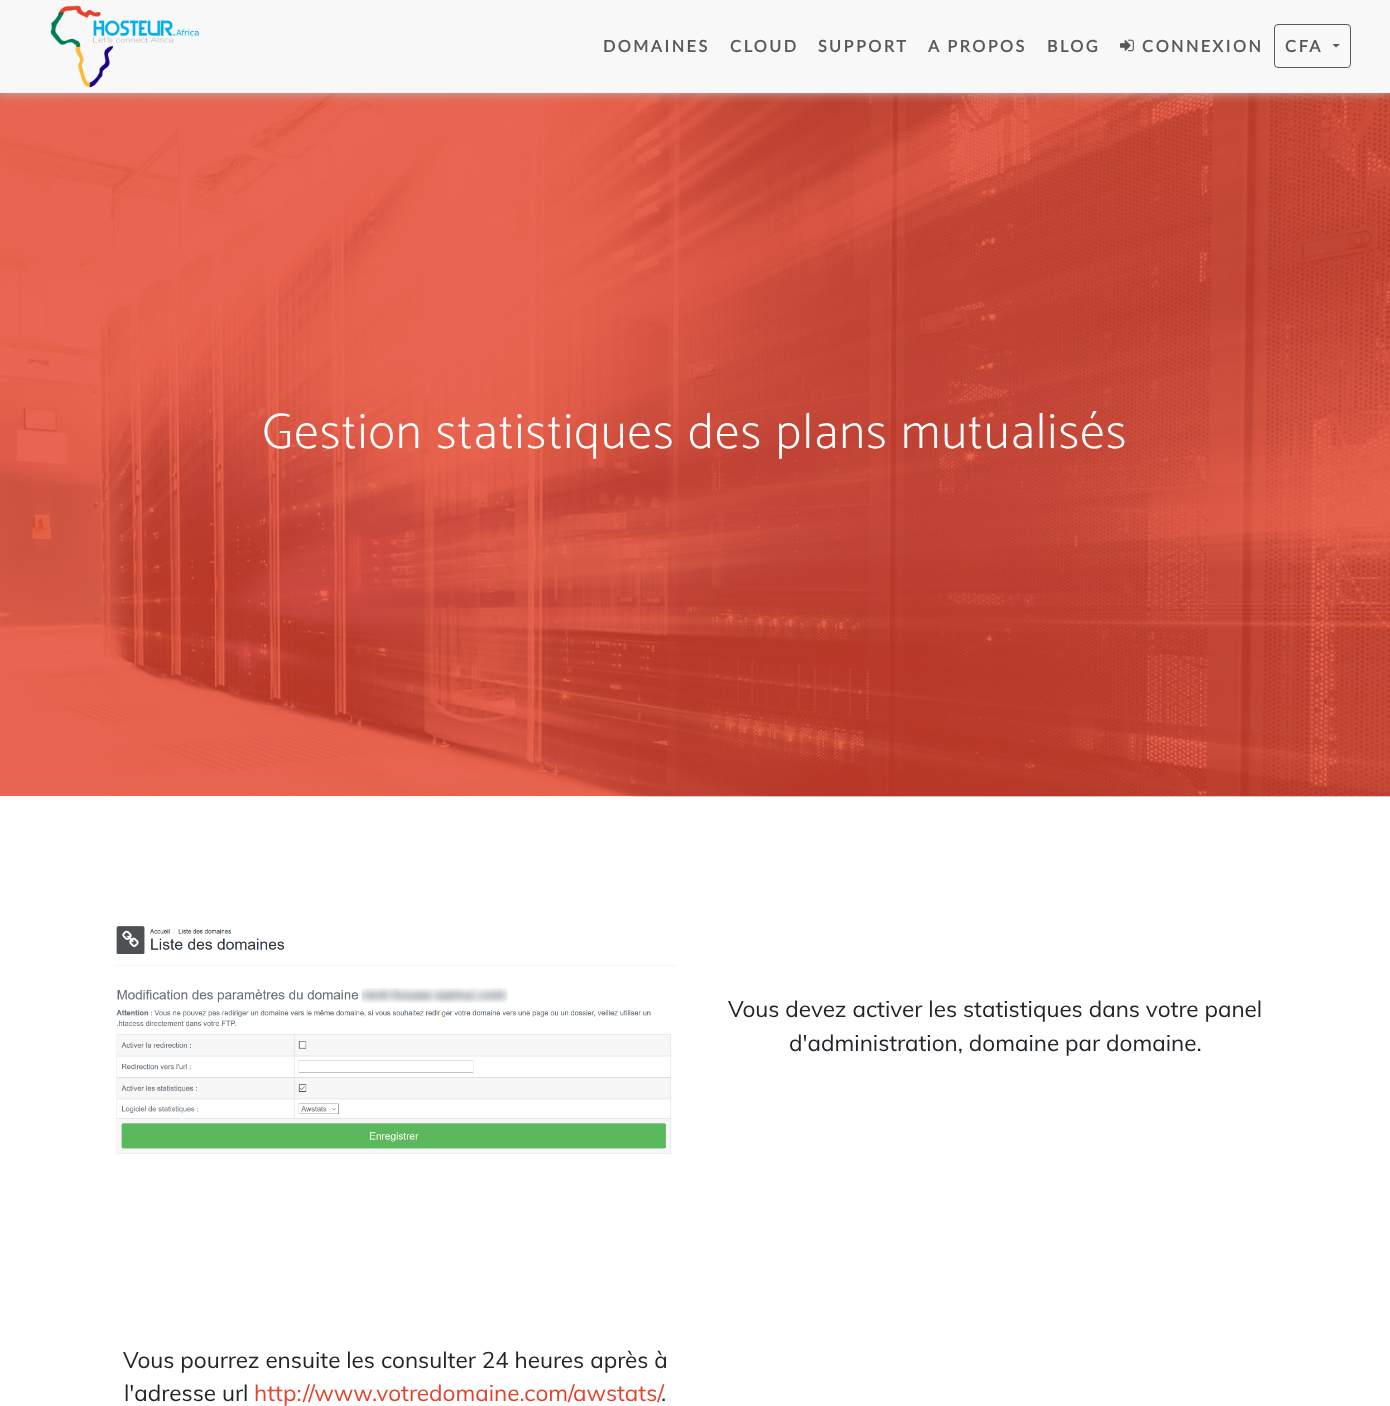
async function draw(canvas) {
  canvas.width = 1390
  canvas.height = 1406
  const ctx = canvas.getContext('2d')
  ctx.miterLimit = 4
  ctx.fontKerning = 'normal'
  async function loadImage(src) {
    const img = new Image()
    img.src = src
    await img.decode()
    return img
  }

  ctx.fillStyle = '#fff'
  ctx.fillRect(0, 0, 1390, 1406)
  ctx.drawImage(await loadImage('image2.png'), 0, 93, 1390, 704)
  ctx.fillStyle = '#bbb'
  ctx.filter = 'blur(5.5px)'
  ctx.beginPath()
  ctx.rect(0, 0, 1390, 93)
  ctx.fill()
  ctx.filter = 'none'
  ctx.fillStyle = '#f8f8f8'
  ctx.fillRect(0, 0, 1390, 93)
  ctx.drawImage(await loadImage('image0.png'), 50, 5, 149, 83)
  ctx.letterSpacing = '2.5px'
  ctx.font = 'bold 16.25px Lato'
  ctx.fillStyle = '#595959'
  ctx.fillText('DOMAINES', 603, 52)
  ctx.fillText('CLOUD', 730, 52)
  ctx.fillText('SUPPORT', 818, 52)
  ctx.fillText('A PROPOS', 928, 52)
  ctx.fillText('BLOG', 1047, 52)
  ctx.drawImage(await loadImage('image1.png'), 1120, 39, 14, 13)
  ctx.fillText('CONNEXION', 1142, 52)
  ctx.beginPath()
  ctx.roundRect(1274.5, 24.5, 76, 43, 3.5)
  ctx.strokeStyle = '#595959'
  ctx.stroke()
  ctx.fillText('CFA', 1285, 52)
  ctx.beginPath()
  ctx.moveTo(1332.5, 44)
  ctx.lineTo(1340, 44)
  ctx.lineTo(1336, 47.5)
  ctx.closePath()
  ctx.fill()
  ctx.letterSpacing = '1.25px'
  ctx.font = '200 50px Catamaran'
  ctx.fillStyle = '#fff'
  ctx.fillText('Gestion statistiques des plans mutualisés', 262, 448)
  ctx.drawImage(await loadImage('image3.png'), 114, 926, 562, 228)
  ctx.letterSpacing = '0px'
  ctx.font = '22.5px Muli'
  ctx.fillStyle = '#212529'
  ctx.fillText('Vous devez activer les statistiques dans votre panel', 728, 1017)
  ctx.fillText('d\'administration, domaine par domaine.', 789, 1051)
  ctx.fillText('Vous pourrez ensuite les consulter 24 heures après à', 123, 1368)
  ctx.fillText('l\'adresse url', 124, 1401)
  ctx.fillStyle = '#e5422c'
  ctx.fillText('http://www.votredomaine.com/awstats/', 254, 1401)
  ctx.fillStyle = '#212529'
  ctx.fillText('.', 661, 1401)
}

draw(document.querySelector('canvas'))
